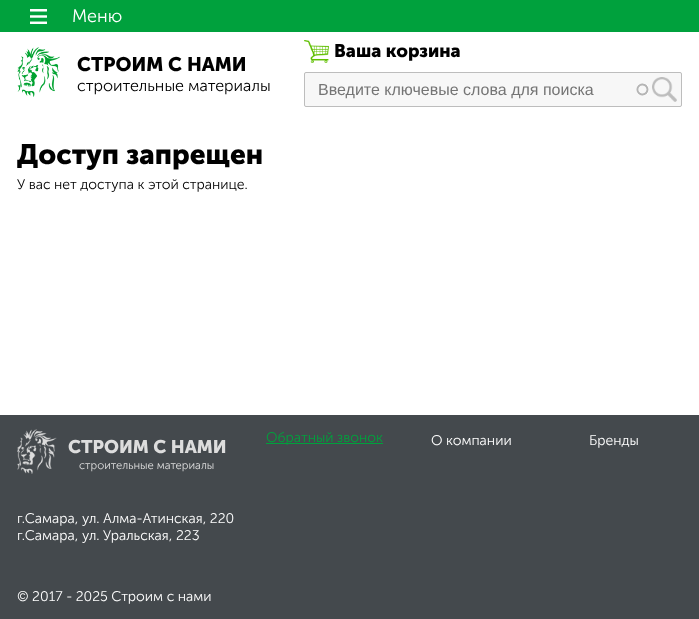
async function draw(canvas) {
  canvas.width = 699
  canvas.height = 619
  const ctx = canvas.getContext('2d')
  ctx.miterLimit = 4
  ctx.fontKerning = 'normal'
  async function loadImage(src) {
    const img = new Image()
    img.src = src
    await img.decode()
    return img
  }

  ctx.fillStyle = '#fff'
  ctx.fillRect(0, 0, 699, 619)
  ctx.fillStyle = '#00a13d'
  ctx.fillRect(0, 0, 699, 32)
  ctx.drawImage(await loadImage('image0.png'), 30, 9, 17, 15)
  ctx.font = '300 18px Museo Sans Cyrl'
  ctx.fillStyle = '#fff'
  ctx.fillText('Меню', 72, 22)
  ctx.drawImage(await loadImage('image1.png'), 17, 47, 43, 50)
  ctx.font = 'bold 19.5px Museo Sans Cyrl'
  ctx.fillStyle = '#000'
  ctx.fillText('СТРОИМ С НАМИ', 77, 71)
  ctx.font = '300 16.1px Museo Sans Cyrl'
  ctx.fillText('строительные материалы', 77, 91)
  ctx.drawImage(await loadImage('image2.png'), 304, 40, 25, 23)
  ctx.font = 'bold 18.25px Museo Sans Cyrl'
  ctx.fillText('Ваша корзина', 334, 57)
  ctx.fillStyle = '#f7f7f7'
  ctx.beginPath()
  ctx.roundRect(304, 72, 378, 35, 2)
  ctx.fill()
  ctx.drawImage(await loadImage('image3.png'), 636, 83, 13, 13)
  ctx.beginPath()
  ctx.roundRect(304.5, 72.5, 377, 34, 1.5)
  ctx.strokeStyle = '#bdbdbd'
  ctx.stroke()
  ctx.font = '16px Liberation Sans'
  ctx.fillStyle = '#757575'
  ctx.fillText('Введите ключевые слова для поиска', 318, 95)
  ctx.drawImage(await loadImage('image4.png'), 652, 77, 25, 25)
  ctx.font = 'bold 28px Museo Sans Cyrl'
  ctx.fillStyle = '#000'
  ctx.fillText('Доступ запрещен', 17, 164)
  ctx.font = '300 14px Museo Sans Cyrl'
  ctx.fillText('У вас нет доступа к этой странице.', 17, 189)
  ctx.fillStyle = '#44494d'
  ctx.fillRect(0, 415, 699, 204)
  ctx.drawImage(await loadImage('image5.png'), 17, 429, 40, 45)
  ctx.font = 'bold 18.25px Museo Sans Cyrl'
  ctx.fillStyle = '#ddd'
  ctx.fillText('СТРОИМ С НАМИ', 68, 453)
  ctx.font = '300 11.25px Museo Sans Cyrl'
  ctx.fillText('строительные материалы', 79, 469)
  ctx.font = '300 14px Museo Sans Cyrl'
  ctx.fillStyle = '#fff'
  ctx.fillText('г.Самара, ул. Алма-Атинская, 220', 17, 523)
  ctx.fillText('г.Самара, ул. Уральская, 223', 17, 540)
  ctx.fillText('© 2017 - 2025 Строим с нами', 17, 601)
  ctx.fillStyle = '#00a13d'
  ctx.fillRect(266, 443, 117, 1)
  ctx.fillText('Обратный звонок', 266, 442)
  ctx.fillStyle = '#fff'
  ctx.fillText('О компании', 431, 445)
  ctx.fillText('Бренды', 589, 445)
}

draw(document.querySelector('canvas'))
